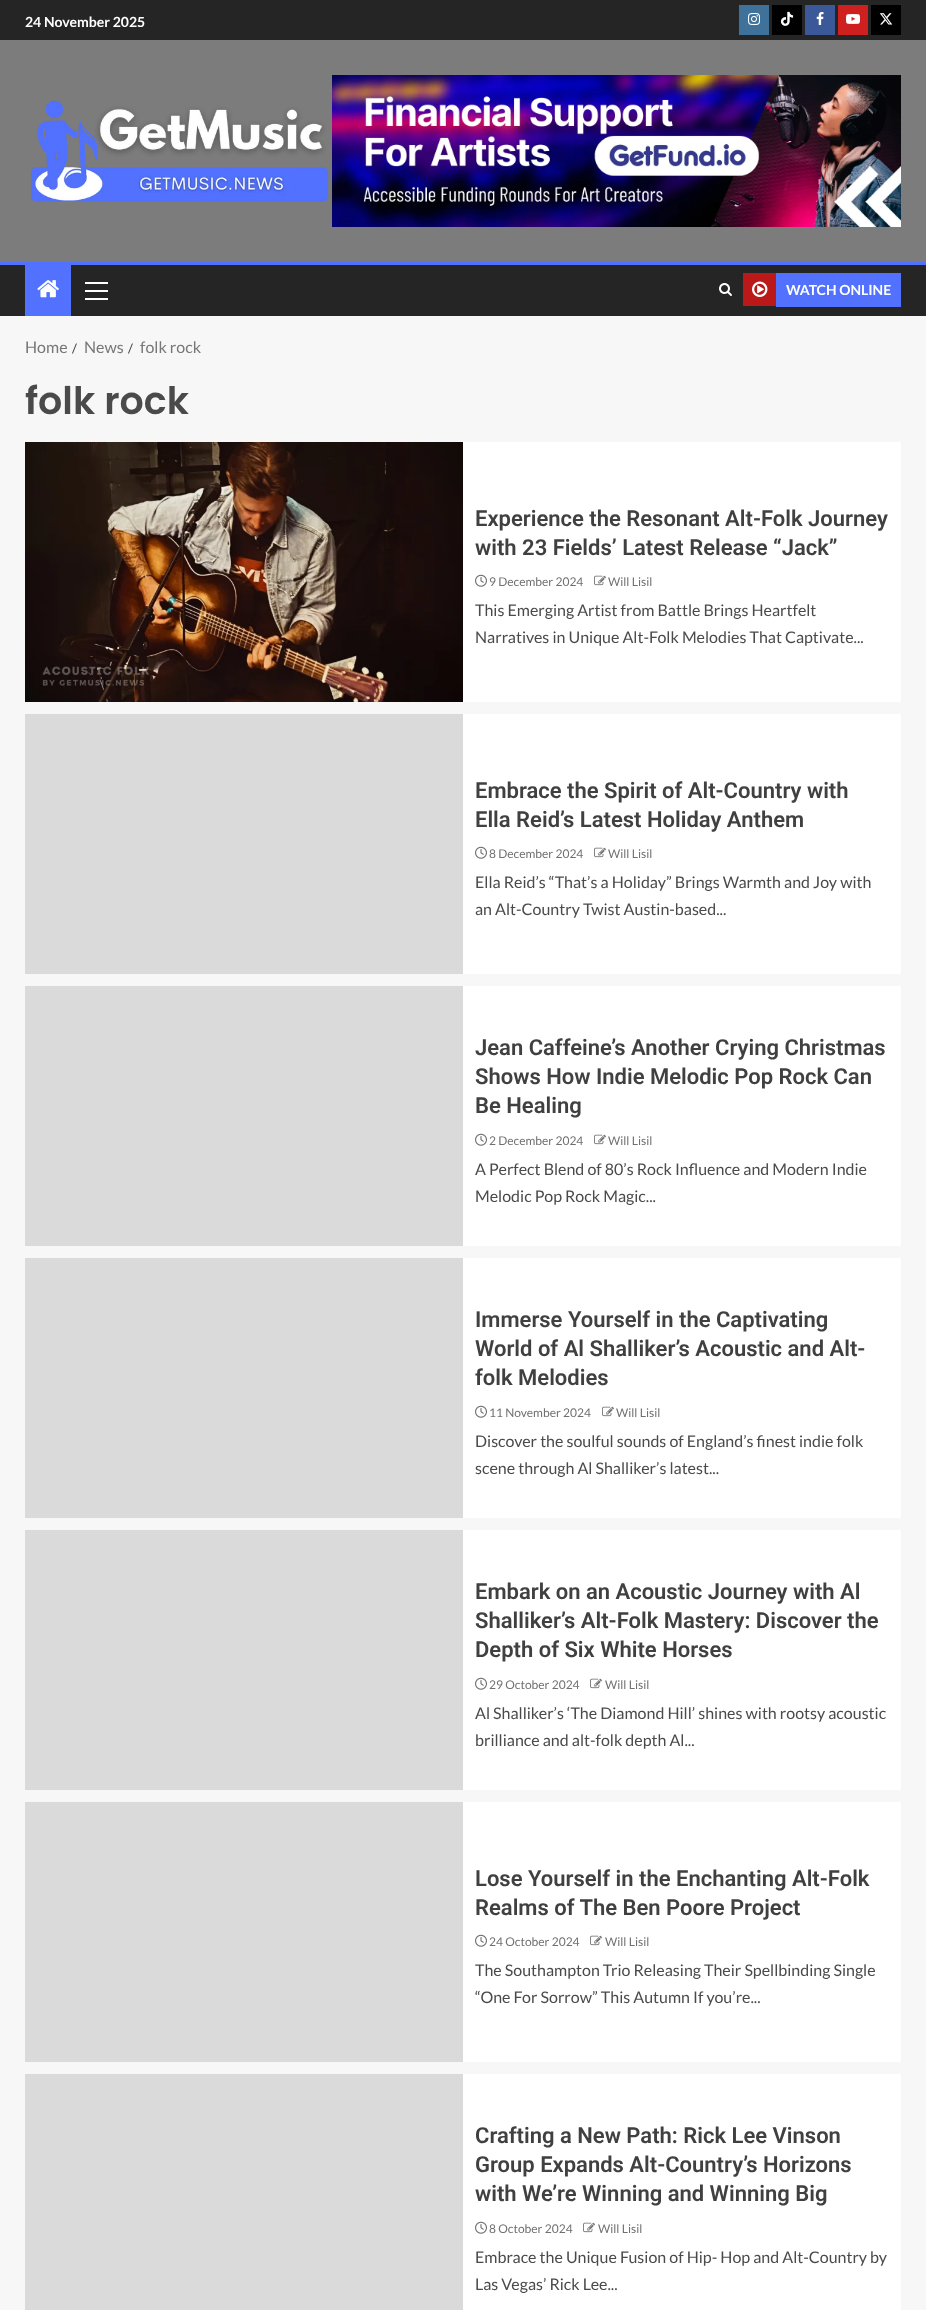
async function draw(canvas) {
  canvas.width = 926
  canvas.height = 2310
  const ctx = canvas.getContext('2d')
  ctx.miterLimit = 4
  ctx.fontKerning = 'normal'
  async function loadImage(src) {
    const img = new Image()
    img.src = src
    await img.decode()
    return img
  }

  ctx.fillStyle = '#f7f7f7'
  ctx.fillRect(0, 0, 926, 2310)
  ctx.fillStyle = '#252525'
  ctx.fillRect(0, 0, 926, 40)
  ctx.font = 'bold 14px Lato'
  ctx.fillStyle = '#fff'
  ctx.fillText('24 November 2025', 25, 27)
  ctx.fillStyle = '#3f729b'
  ctx.fillRect(739, 5, 30, 30)
  ctx.drawImage(await loadImage('image0.png'), 748, 13, 12, 12)
  ctx.fillStyle = '#010101'
  ctx.fillRect(772, 5, 30, 30)
  ctx.drawImage(await loadImage('image1.png'), 780, 11, 14, 15)
  ctx.fillStyle = '#3b5999'
  ctx.fillRect(805, 5, 30, 30)
  ctx.drawImage(await loadImage('image2.png'), 816, 12, 8, 13)
  ctx.fillStyle = '#cd201f'
  ctx.fillRect(838, 5, 30, 30)
  ctx.drawImage(await loadImage('image3.png'), 846, 14, 14, 10)
  ctx.fillStyle = '#000'
  ctx.fillRect(871, 5, 30, 30)
  ctx.drawImage(await loadImage('image4.png'), 879, 13, 14, 12)
  ctx.fillStyle = '#7c7c7c'
  ctx.fillRect(0, 40, 926, 222)
  ctx.drawImage(await loadImage('image5.png'), 31, 100, 298, 102)
  ctx.drawImage(await loadImage('image6.png'), 332, 75, 569, 152)
  ctx.fillStyle = '#252525'
  ctx.fillRect(0, 265, 926, 51)
  ctx.fillStyle = '#5271ff'
  ctx.fillRect(0, 262, 926, 3)
  ctx.fillRect(25, 265, 46, 51)
  ctx.drawImage(await loadImage('image7.png'), 37, 280, 22, 18)
  ctx.fillStyle = '#fff'
  ctx.fillRect(85, 290, 23, 2)
  ctx.fillRect(85, 282, 23, 2)
  ctx.fillRect(85, 298, 23, 2)
  ctx.drawImage(await loadImage('image8.png'), 719, 283, 13, 13)
  ctx.fillStyle = '#bb1919'
  ctx.fillRect(743, 273, 33, 33)
  ctx.drawImage(await loadImage('image9.png'), 752, 281, 16, 16)
  ctx.fillStyle = '#5271ff'
  ctx.fillRect(776, 273, 125, 34)
  ctx.fillStyle = '#fff'
  ctx.fillText('WATCH ONLINE', 786, 295)
  ctx.font = '16px Lato'
  ctx.fillStyle = '#777'
  ctx.fillText('Home', 25, 353)
  ctx.font = '13px Lato'
  ctx.fillStyle = '#393e46'
  ctx.fillText('/', 72, 353)
  ctx.font = '16px Lato'
  ctx.fillStyle = '#777'
  ctx.fillText('News', 84, 353)
  ctx.font = '13px Lato'
  ctx.fillStyle = '#393e46'
  ctx.fillText('/', 128, 353)
  ctx.font = '16px Lato'
  ctx.fillStyle = '#777'
  ctx.fillText('folk rock', 140, 353)
  ctx.font = '600 38px Poppins'
  ctx.fillStyle = '#4a4a4a'
  ctx.fillText('folk rock', 25, 414)
  ctx.fillStyle = '#fff'
  ctx.fillRect(463, 442, 438, 260)
  ctx.drawImage(await loadImage('image10.png'), 25, 442, 438, 260)
  ctx.font = '600 22px Roboto'
  ctx.fillStyle = '#404040'
  ctx.fillText('Experience the Resonant Alt-Folk Journey', 475, 526)
  ctx.fillText('with 23 Fields’ Latest Release “Jack”', 475, 555)
  ctx.drawImage(await loadImage('image11.png'), 475, 574, 12, 13)
  ctx.font = '12px Lato'
  ctx.fillStyle = '#707070'
  ctx.fillText('9 December 2024', 489, 586)
  ctx.drawImage(await loadImage('image12.png'), 594, 575, 12, 11)
  ctx.fillText('Will Lisil', 608, 586)
  ctx.font = '16px Lato'
  ctx.fillStyle = '#4a4a4a'
  ctx.fillText('This Emerging Artist from Battle Brings Heartfelt', 475, 616)
  ctx.fillText('Narratives in Unique Alt-Folk Melodies That Captivate...', 475, 643)
  ctx.fillStyle = '#fff'
  ctx.fillRect(463, 714, 438, 260)
  ctx.fillStyle = '#dadada'
  ctx.fillRect(25, 714, 438, 260)
  ctx.font = '600 22px Roboto'
  ctx.fillStyle = '#404040'
  ctx.fillText('Embrace the Spirit of Alt-Country with', 475, 798)
  ctx.fillText('Ella Reid’s Latest Holiday Anthem', 475, 827)
  ctx.drawImage(await loadImage('image11.png'), 475, 846, 12, 13)
  ctx.font = '12px Lato'
  ctx.fillStyle = '#707070'
  ctx.fillText('8 December 2024', 489, 858)
  ctx.drawImage(await loadImage('image12.png'), 594, 847, 12, 11)
  ctx.fillText('Will Lisil', 608, 858)
  ctx.font = '16px Lato'
  ctx.fillStyle = '#4a4a4a'
  ctx.fillText('Ella Reid’s “That’s a Holiday” Brings Warmth and Joy with', 475, 888)
  ctx.fillText('an Alt-Country Twist Austin-based...', 475, 915)
  ctx.fillStyle = '#fff'
  ctx.fillRect(463, 986, 438, 260)
  ctx.fillStyle = '#dadada'
  ctx.fillRect(25, 986, 438, 260)
  ctx.font = '600 22px Roboto'
  ctx.fillStyle = '#404040'
  ctx.fillText('Jean Caffeine’s Another Crying Christmas', 475, 1055)
  ctx.fillText('Shows How Indie Melodic Pop Rock Can', 475, 1084)
  ctx.fillText('Be Healing', 475, 1113)
  ctx.drawImage(await loadImage('image11.png'), 475, 1133, 12, 13)
  ctx.font = '12px Lato'
  ctx.fillStyle = '#707070'
  ctx.fillText('2 December 2024', 489, 1145)
  ctx.drawImage(await loadImage('image12.png'), 594, 1134, 12, 11)
  ctx.fillText('Will Lisil', 608, 1145)
  ctx.font = '16px Lato'
  ctx.fillStyle = '#4a4a4a'
  ctx.fillText('A Perfect Blend of 80’s Rock Influence and Modern Indie', 475, 1175)
  ctx.fillText('Melodic Pop Rock Magic...', 475, 1202)
  ctx.fillStyle = '#fff'
  ctx.fillRect(463, 1258, 438, 260)
  ctx.fillStyle = '#dadada'
  ctx.fillRect(25, 1258, 438, 260)
  ctx.font = '600 22px Roboto'
  ctx.fillStyle = '#404040'
  ctx.fillText('Immerse Yourself in the Captivating', 475, 1327)
  ctx.fillText('World of Al Shalliker’s Acoustic and Alt-', 475, 1356)
  ctx.fillText('folk Melodies', 475, 1385)
  ctx.drawImage(await loadImage('image11.png'), 475, 1405, 12, 13)
  ctx.font = '12px Lato'
  ctx.fillStyle = '#707070'
  ctx.fillText('11 November 2024', 489, 1417)
  ctx.drawImage(await loadImage('image12.png'), 602, 1406, 12, 11)
  ctx.fillText('Will Lisil', 616, 1417)
  ctx.font = '16px Lato'
  ctx.fillStyle = '#4a4a4a'
  ctx.fillText('Discover the soulful sounds of England’s finest indie folk', 475, 1447)
  ctx.fillText('scene through Al Shalliker’s latest...', 475, 1474)
  ctx.fillStyle = '#fff'
  ctx.fillRect(463, 1530, 438, 260)
  ctx.fillStyle = '#dadada'
  ctx.fillRect(25, 1530, 438, 260)
  ctx.font = '600 22px Roboto'
  ctx.fillStyle = '#404040'
  ctx.fillText('Embark on an Acoustic Journey with Al', 475, 1599)
  ctx.fillText('Shalliker’s Alt-Folk Mastery: Discover the', 475, 1628)
  ctx.fillText('Depth of Six White Horses', 475, 1657)
  ctx.drawImage(await loadImage('image11.png'), 475, 1677, 12, 13)
  ctx.font = '12px Lato'
  ctx.fillStyle = '#707070'
  ctx.fillText('29 October 2024', 489, 1689)
  ctx.drawImage(await loadImage('image12.png'), 590, 1678, 12, 11)
  ctx.fillText('Will Lisil', 605, 1689)
  ctx.font = '16px Lato'
  ctx.fillStyle = '#4a4a4a'
  ctx.fillText('Al Shalliker’s ‘The Diamond Hill’ shines with rootsy acoustic', 475, 1719)
  ctx.fillText('brilliance and alt-folk depth Al...', 475, 1746)
  ctx.fillStyle = '#fff'
  ctx.fillRect(463, 1802, 438, 260)
  ctx.fillStyle = '#dadada'
  ctx.fillRect(25, 1802, 438, 260)
  ctx.font = '600 22px Roboto'
  ctx.fillStyle = '#404040'
  ctx.fillText('Lose Yourself in the Enchanting Alt-Folk', 475, 1886)
  ctx.fillText('Realms of The Ben Poore Project', 475, 1915)
  ctx.drawImage(await loadImage('image11.png'), 475, 1934, 12, 13)
  ctx.font = '12px Lato'
  ctx.fillStyle = '#707070'
  ctx.fillText('24 October 2024', 489, 1946)
  ctx.drawImage(await loadImage('image12.png'), 590, 1935, 12, 11)
  ctx.fillText('Will Lisil', 605, 1946)
  ctx.font = '16px Lato'
  ctx.fillStyle = '#4a4a4a'
  ctx.fillText('The Southampton Trio Releasing Their Spellbinding Single', 475, 1976)
  ctx.fillText('“One For Sorrow” This Autumn If you’re...', 475, 2003)
  ctx.fillStyle = '#fff'
  ctx.fillRect(463, 2074, 438, 236)
  ctx.fillStyle = '#dadada'
  ctx.fillRect(25, 2074, 438, 236)
  ctx.font = '600 22px Roboto'
  ctx.fillStyle = '#404040'
  ctx.fillText('Crafting a New Path: Rick Lee Vinson', 475, 2143)
  ctx.fillText('Group Expands Alt-Country’s Horizons', 475, 2172)
  ctx.fillText('with We’re Winning and Winning Big', 475, 2201)
  ctx.drawImage(await loadImage('image11.png'), 475, 2221, 12, 13)
  ctx.font = '12px Lato'
  ctx.fillStyle = '#707070'
  ctx.fillText('8 October 2024', 489, 2233)
  ctx.drawImage(await loadImage('image12.png'), 583, 2222, 12, 11)
  ctx.fillText('Will Lisil', 598, 2233)
  ctx.font = '16px Lato'
  ctx.fillStyle = '#4a4a4a'
  ctx.fillText('Embrace the Unique Fusion of Hip- Hop and Alt-Country by', 475, 2263)
  ctx.fillText('Las Vegas’ Rick Lee...', 475, 2290)
}

draw(document.querySelector('canvas'))
